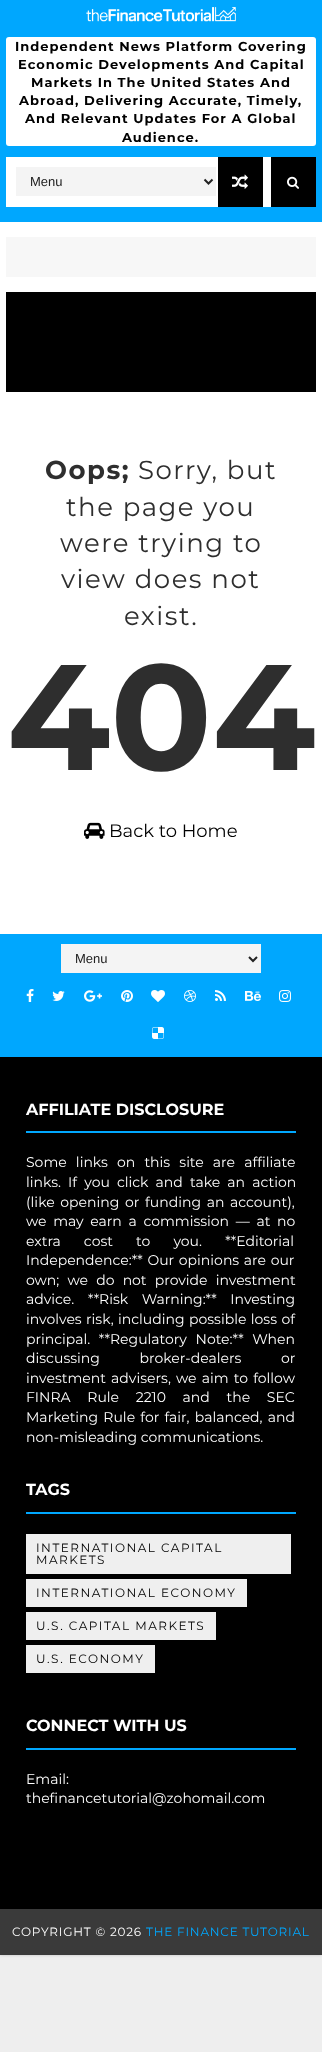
async function draw(canvas) {
  canvas.width = 322
  canvas.height = 2052
  const ctx = canvas.getContext('2d')
  ctx.miterLimit = 4
  ctx.fontKerning = 'normal'
  async function loadImage(src) {
    const img = new Image()
    img.src = src
    await img.decode()
    return img
  }

  ctx.fillStyle = '#eee'
  ctx.fillRect(0, 0, 322, 2052)
  ctx.fillStyle = '#00000033'
  ctx.filter = 'blur(1.5px)'
  ctx.beginPath()
  ctx.rect(0, 0, 322, 1955)
  ctx.fill()
  ctx.filter = 'none'
  ctx.fillStyle = '#fff'
  ctx.fillRect(0, 222, 322, 712)
  ctx.fillStyle = '#00a7fe'
  ctx.fillRect(0, 0, 322, 222)
  ctx.drawImage(await loadImage('image0.png'), 86, 6, 150, 16)
  ctx.fillStyle = '#fff'
  ctx.beginPath()
  ctx.roundRect(6, 37, 310, 109, 3)
  ctx.fill()
  ctx.letterSpacing = '1px'
  ctx.font = 'bold 13px Montserrat'
  ctx.fillStyle = '#000'
  ctx.fillText('Independent News Platform Covering', 15, 51)
  ctx.fillText('Economic Developments And Capital', 18, 69)
  ctx.fillText('Markets In The United States And', 31, 87)
  ctx.fillText('Abroad, Delivering Accurate, Timely,', 19, 105)
  ctx.fillText('And Relevant Updates For A Global', 25, 123)
  ctx.fillText('Audience.', 122, 142)
  ctx.fillStyle = '#fff'
  ctx.fillRect(6, 157, 265, 50)
  ctx.fillStyle = '#f4f4f4'
  ctx.fillRect(16, 167, 200, 29)
  ctx.beginPath()
  ctx.moveTo(204.5, 179.5)
  ctx.lineTo(208.5, 183.5)
  ctx.lineTo(212.5, 179.5)
  ctx.strokeStyle = '#222'
  ctx.lineWidth = 2
  ctx.stroke()
  ctx.letterSpacing = '0px'
  ctx.font = '13px Liberation Sans'
  ctx.fillStyle = '#222'
  ctx.fillText('Menu', 30, 186)
  ctx.fillStyle = '#000'
  ctx.fillRect(218, 157, 45, 50)
  ctx.drawImage(await loadImage('image1.png'), 232, 174, 16, 15)
  ctx.fillRect(271, 157, 45, 50)
  ctx.drawImage(await loadImage('image2.png'), 287, 176, 12, 13)
  ctx.fillStyle = '#f7f7f7'
  ctx.fillRect(6, 237, 310, 40)
  ctx.fillStyle = '#000'
  ctx.fillRect(6, 292, 310, 100)
  ctx.letterSpacing = '1.5px'
  ctx.font = 'bold 26px Montserrat'
  ctx.fillStyle = '#2e2e2e'
  ctx.fillText('Oops;', 45, 479)
  ctx.font = '26px Montserrat'
  ctx.fillText('Sorry, but', 138, 479)
  ctx.fillText('the page you', 66, 516)
  ctx.fillText('were trying to', 60, 552)
  ctx.fillText('view does not', 61, 588)
  ctx.fillText('exist.', 124, 625)
  ctx.letterSpacing = '0px'
  ctx.font = 'bold 150px Montserrat'
  ctx.fillText('404', 7, 770)
  ctx.drawImage(await loadImage('image3.png'), 84, 822, 21, 17)
  ctx.font = '18px Montserrat'
  ctx.fillStyle = '#000'
  ctx.fillText('Back to Home', 109, 837)
  ctx.fillRect(0, 1057, 322, 852)
  ctx.fillStyle = '#00a7fe'
  ctx.fillRect(0, 934, 322, 123)
  ctx.fillStyle = '#f4f4f4'
  ctx.fillRect(61, 944, 200, 29)
  ctx.beginPath()
  ctx.moveTo(249, 957)
  ctx.lineTo(253, 961)
  ctx.lineTo(257, 957)
  ctx.stroke()
  ctx.font = '13px Liberation Sans'
  ctx.fillStyle = '#222'
  ctx.fillText('Menu', 75, 963)
  ctx.drawImage(await loadImage('image4.png'), 26, 989, 8, 13)
  ctx.drawImage(await loadImage('image5.png'), 52, 991, 13, 10)
  ctx.drawImage(await loadImage('image6.png'), 84, 990, 18, 12)
  ctx.drawImage(await loadImage('image7.png'), 121, 990, 12, 12)
  ctx.drawImage(await loadImage('image8.png'), 151, 990, 14, 12)
  ctx.drawImage(await loadImage('image9.png'), 184, 990, 12, 12)
  ctx.drawImage(await loadImage('image10.png'), 215, 990, 11, 11)
  ctx.drawImage(await loadImage('image11.png'), 245, 991, 16, 10)
  ctx.drawImage(await loadImage('image12.png'), 279, 990, 12, 12)
  ctx.drawImage(await loadImage('image13.png'), 152, 1027, 12, 12)
  ctx.fillStyle = '#00a7fe'
  ctx.fillRect(26, 1131, 270, 2)
  ctx.font = 'bold 16px Montserrat'
  ctx.fillStyle = '#fff'
  ctx.fillText('AFFILIATE DISCLOSURE', 26, 1115)
  ctx.wordSpacing = '5.5px'
  ctx.font = '14px Montserrat'
  ctx.fillText('Some links on this site are affiliate', 26, 1167)
  ctx.wordSpacing = '3.5px'
  ctx.fillText('links. If you click and take an action', 26, 1187)
  ctx.wordSpacing = '2px'
  ctx.fillText('(like opening or funding an account),', 26, 1207)
  ctx.wordSpacing = '3px'
  ctx.fillText('we may earn a commission — at no', 26, 1226)
  ctx.wordSpacing = '19.5px'
  ctx.fillText('extra cost to you. **Editorial', 26, 1246)
  ctx.wordSpacing = '1px'
  ctx.fillText('Independence:** Our opinions are our', 26, 1265)
  ctx.wordSpacing = '4.5px'
  ctx.fillText('own; we do not provide investment', 26, 1285)
  ctx.wordSpacing = '10px'
  ctx.fillText('advice. **Risk Warning:** Investing', 26, 1304)
  ctx.wordSpacing = '0.75px'
  ctx.fillText('involves risk, including possible loss of', 26, 1324)
  ctx.wordSpacing = '5px'
  ctx.fillText('principal. **Regulatory Note:** When', 26, 1344)
  ctx.wordSpacing = '36px'
  ctx.fillText('discussing broker-dealers or', 26, 1363)
  ctx.wordSpacing = '1.5px'
  ctx.fillText('investment advisers, we aim to follow', 26, 1383)
  ctx.wordSpacing = '13px'
  ctx.fillText('FINRA Rule 2210 and the SEC', 26, 1402)
  ctx.wordSpacing = '1.5px'
  ctx.fillText('Marketing Rule for fair, balanced, and', 26, 1422)
  ctx.wordSpacing = '0px'
  ctx.fillText('non-misleading communications.', 26, 1442)
  ctx.fillStyle = '#00a7fe'
  ctx.fillRect(26, 1512, 270, 2)
  ctx.font = 'bold 16px Montserrat'
  ctx.fillStyle = '#fff'
  ctx.fillText('TAGS', 26, 1495)
  ctx.fillStyle = '#efefef'
  ctx.fillRect(26, 1534, 265, 40)
  ctx.letterSpacing = '1.5px'
  ctx.font = '12px Montserrat'
  ctx.fillStyle = '#000'
  ctx.fillText('INTERNATIONAL CAPITAL', 36, 1552)
  ctx.fillText('MARKETS', 36, 1564)
  ctx.fillStyle = '#efefef'
  ctx.fillRect(26, 1579, 221, 28)
  ctx.fillStyle = '#000'
  ctx.fillText('INTERNATIONAL ECONOMY', 36, 1597)
  ctx.fillStyle = '#efefef'
  ctx.fillRect(26, 1612, 190, 28)
  ctx.fillStyle = '#000'
  ctx.fillText('U.S. CAPITAL MARKETS', 36, 1630)
  ctx.fillStyle = '#efefef'
  ctx.fillRect(26, 1645, 129, 28)
  ctx.fillStyle = '#000'
  ctx.fillText('U.S. ECONOMY', 36, 1663)
  ctx.fillStyle = '#00a7fe'
  ctx.fillRect(26, 1748, 270, 2)
  ctx.letterSpacing = '0px'
  ctx.font = 'bold 16px Montserrat'
  ctx.fillStyle = '#fff'
  ctx.fillText('CONNECT WITH US', 26, 1731)
  ctx.font = '14px Montserrat'
  ctx.fillText('Email:', 26, 1784)
  ctx.fillText('thefinancetutorial@zohomail.com', 26, 1803)
  ctx.fillStyle = '#3a3a3a'
  ctx.fillRect(0, 1909, 322, 46)
  ctx.letterSpacing = '0.8px'
  ctx.font = '12px Montserrat'
  ctx.fillStyle = '#fff'
  ctx.fillText('COPYRIGHT © 2026', 12, 1936)
  ctx.fillStyle = '#00a7fe'
  ctx.fillText('THE FINANCE TUTORIAL', 146, 1936)
}

draw(document.querySelector('canvas'))
